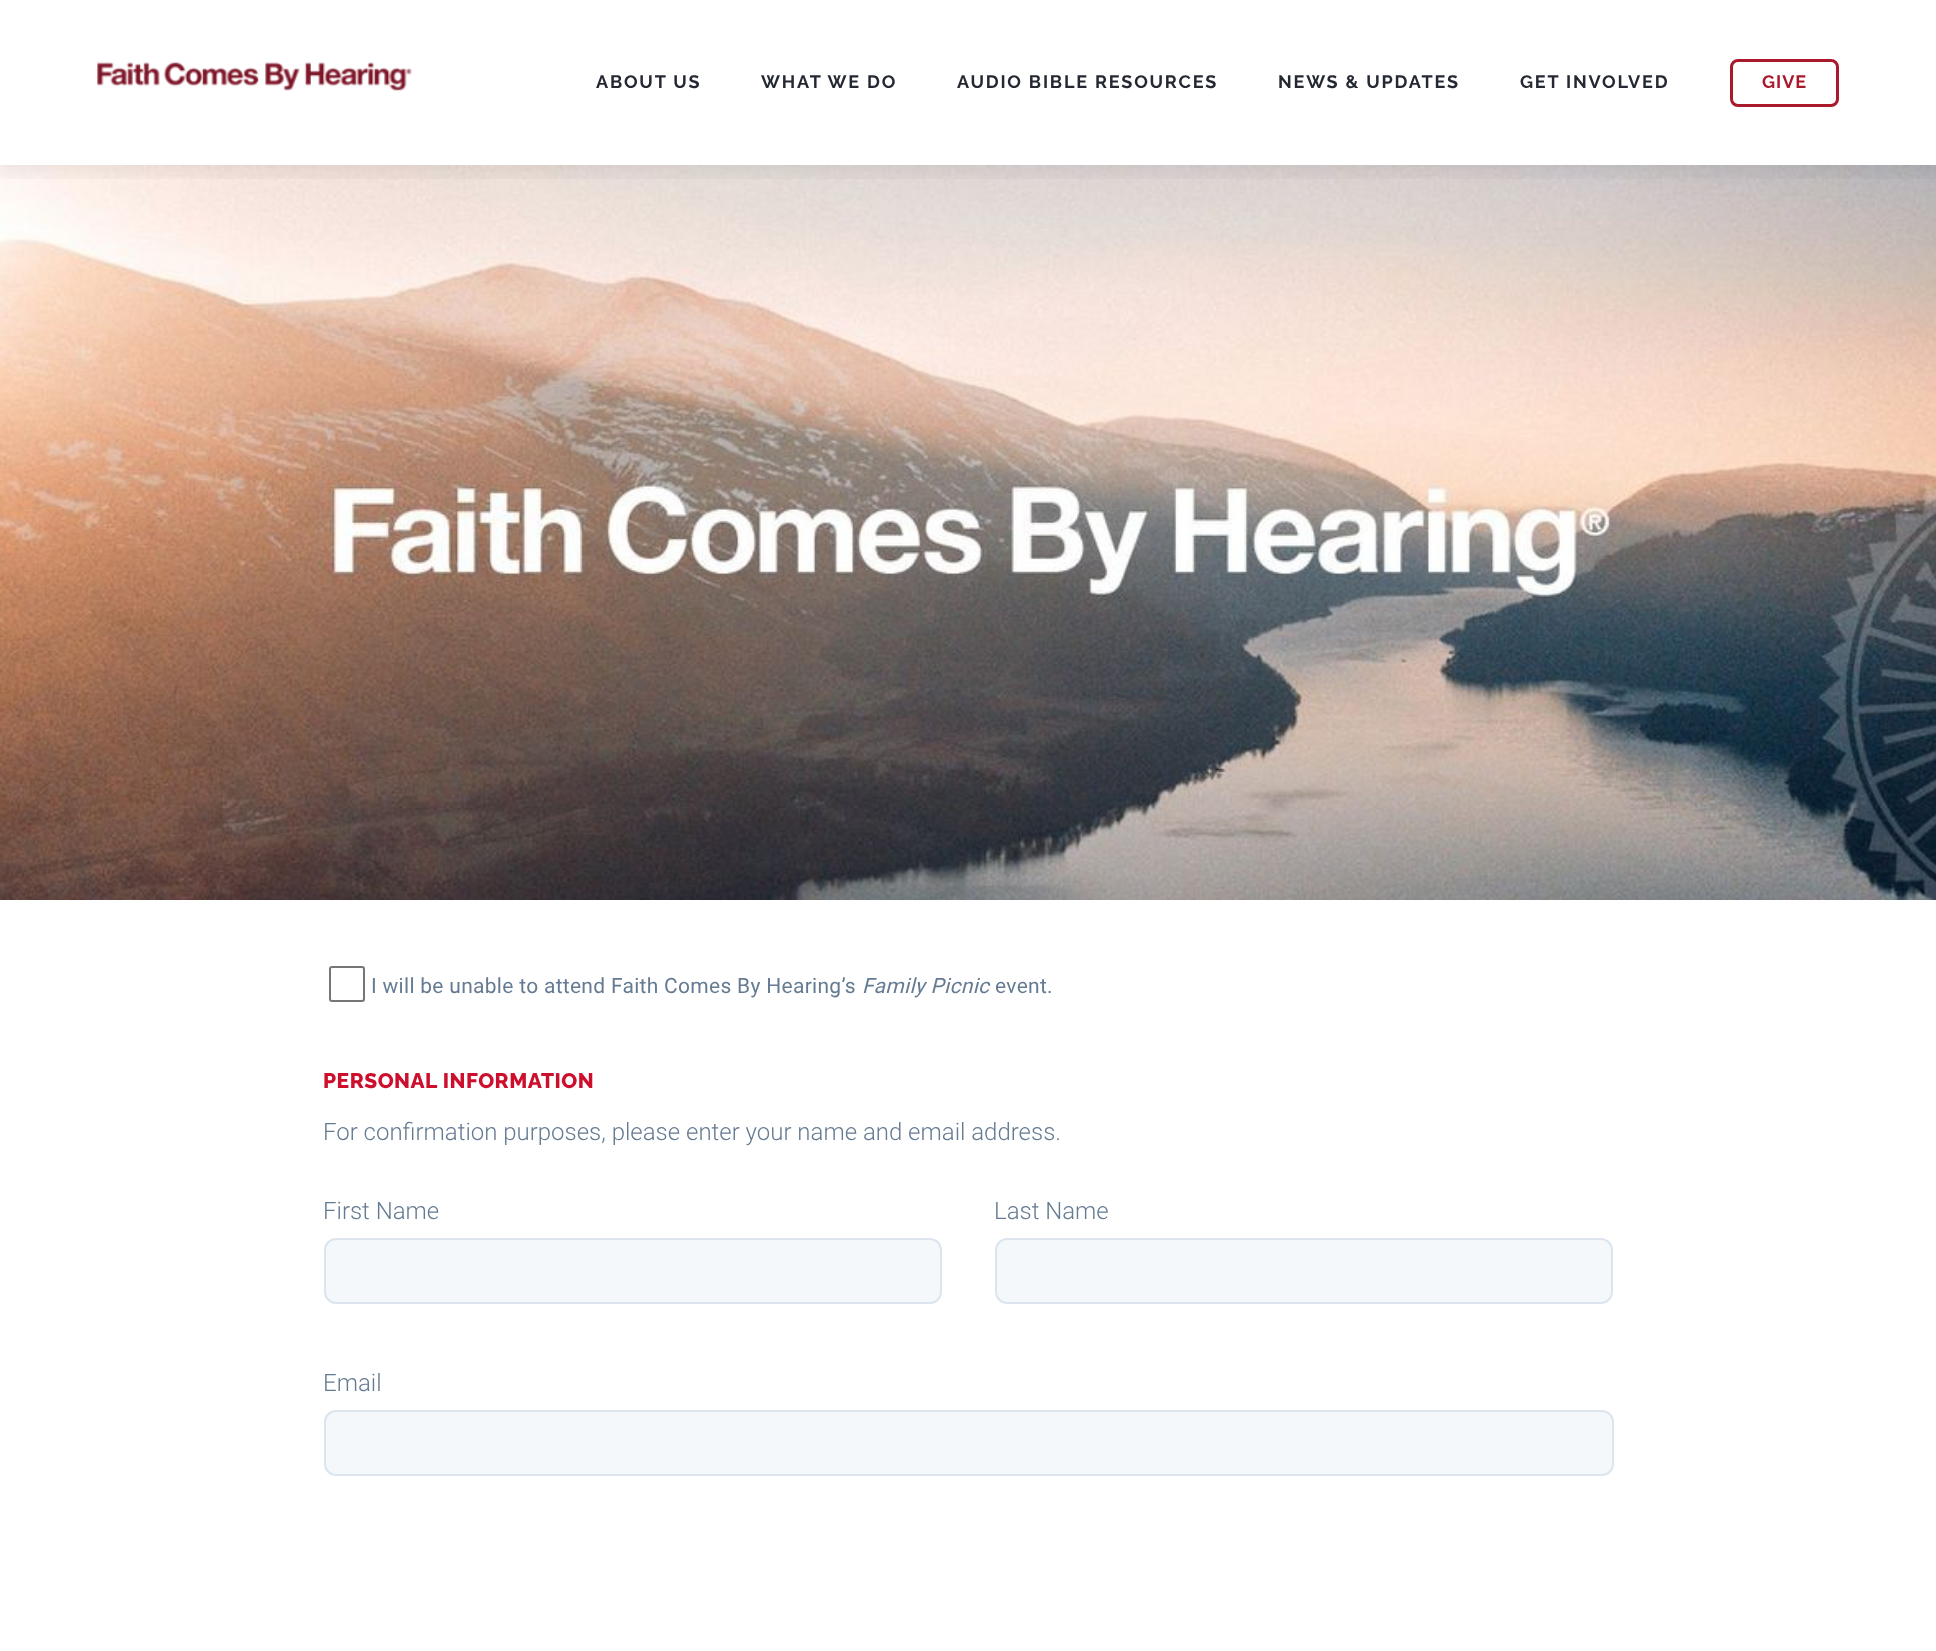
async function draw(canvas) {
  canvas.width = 1936
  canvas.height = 1651
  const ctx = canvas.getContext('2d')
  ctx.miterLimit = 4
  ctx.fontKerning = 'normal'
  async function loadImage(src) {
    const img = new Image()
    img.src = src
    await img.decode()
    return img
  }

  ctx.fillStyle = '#fff'
  ctx.fillRect(0, 0, 1936, 1651)
  ctx.drawImage(await loadImage('image1.png'), 0, 165, 1936, 735)
  ctx.save()
  ctx.beginPath()
  ctx.rect(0, 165, 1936, 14)
  ctx.clip()
  ctx.fillStyle = '#11111112'
  ctx.filter = 'blur(9px)'
  ctx.beginPath()
  ctx.rect(-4, -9, 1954, 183)
  ctx.fill()
  ctx.filter = 'none'
  ctx.restore()
  ctx.drawImage(await loadImage('image0.png'), 97, 62, 315, 29)
  ctx.letterSpacing = '1.8px'
  ctx.font = 'bold 18px Raleway'
  ctx.fillStyle = '#242833'
  ctx.fillText('ABOUT US', 596, 88)
  ctx.fillText('WHAT WE DO', 761, 88)
  ctx.fillText('AUDIO BIBLE RESOURCES', 957, 88)
  ctx.fillText('NEWS & UPDATES', 1278, 88)
  ctx.fillText('GET INVOLVED', 1520, 88)
  ctx.beginPath()
  ctx.roundRect(1731.5, 60.5, 106, 45, 6.5)
  ctx.strokeStyle = '#aa182c'
  ctx.lineWidth = 3
  ctx.stroke()
  ctx.letterSpacing = '1px'
  ctx.fillStyle = '#aa182c'
  ctx.fillText('GIVE', 1762, 88)
  ctx.beginPath()
  ctx.roundRect(330, 967, 34, 34, 2)
  ctx.strokeStyle = '#767676'
  ctx.lineWidth = 2
  ctx.stroke()
  ctx.letterSpacing = '0.3px'
  ctx.font = '21px Roboto'
  ctx.fillStyle = '#657b92'
  ctx.fillText('I will be unable to attend Faith Comes By Hearing’s', 371, 993)
  ctx.font = 'italic 21px Roboto'
  ctx.fillText('Family Picnic', 862, 993)
  ctx.font = '21px Roboto'
  ctx.fillText('event.', 995, 993)
  ctx.letterSpacing = '0.5px'
  ctx.font = '800 21px Raleway'
  ctx.fillStyle = '#ce0e2d'
  ctx.fillText('PERSONAL INFORMATION', 323, 1088)
  ctx.letterSpacing = '0px'
  ctx.font = '300 24px Roboto'
  ctx.fillStyle = '#657b92'
  ctx.fillText('For confirmation purposes, please enter your name and email address.', 323, 1140)
  ctx.fillText('First Name', 323, 1219)
  ctx.fillStyle = '#f5f8fb'
  ctx.beginPath()
  ctx.roundRect(325, 1239, 616, 64, 11)
  ctx.fill()
  ctx.strokeStyle = '#dce5ee'
  ctx.stroke()
  ctx.fillStyle = '#657b92'
  ctx.fillText('Last Name', 994, 1219)
  ctx.fillStyle = '#f5f8fb'
  ctx.beginPath()
  ctx.roundRect(996, 1239, 616, 64, 11)
  ctx.fill()
  ctx.stroke()
  ctx.fillStyle = '#657b92'
  ctx.fillText('Email', 323, 1391)
  ctx.fillStyle = '#f5f8fb'
  ctx.beginPath()
  ctx.roundRect(325, 1411, 1288, 64, 11)
  ctx.fill()
  ctx.stroke()
}

draw(document.querySelector('canvas'))
